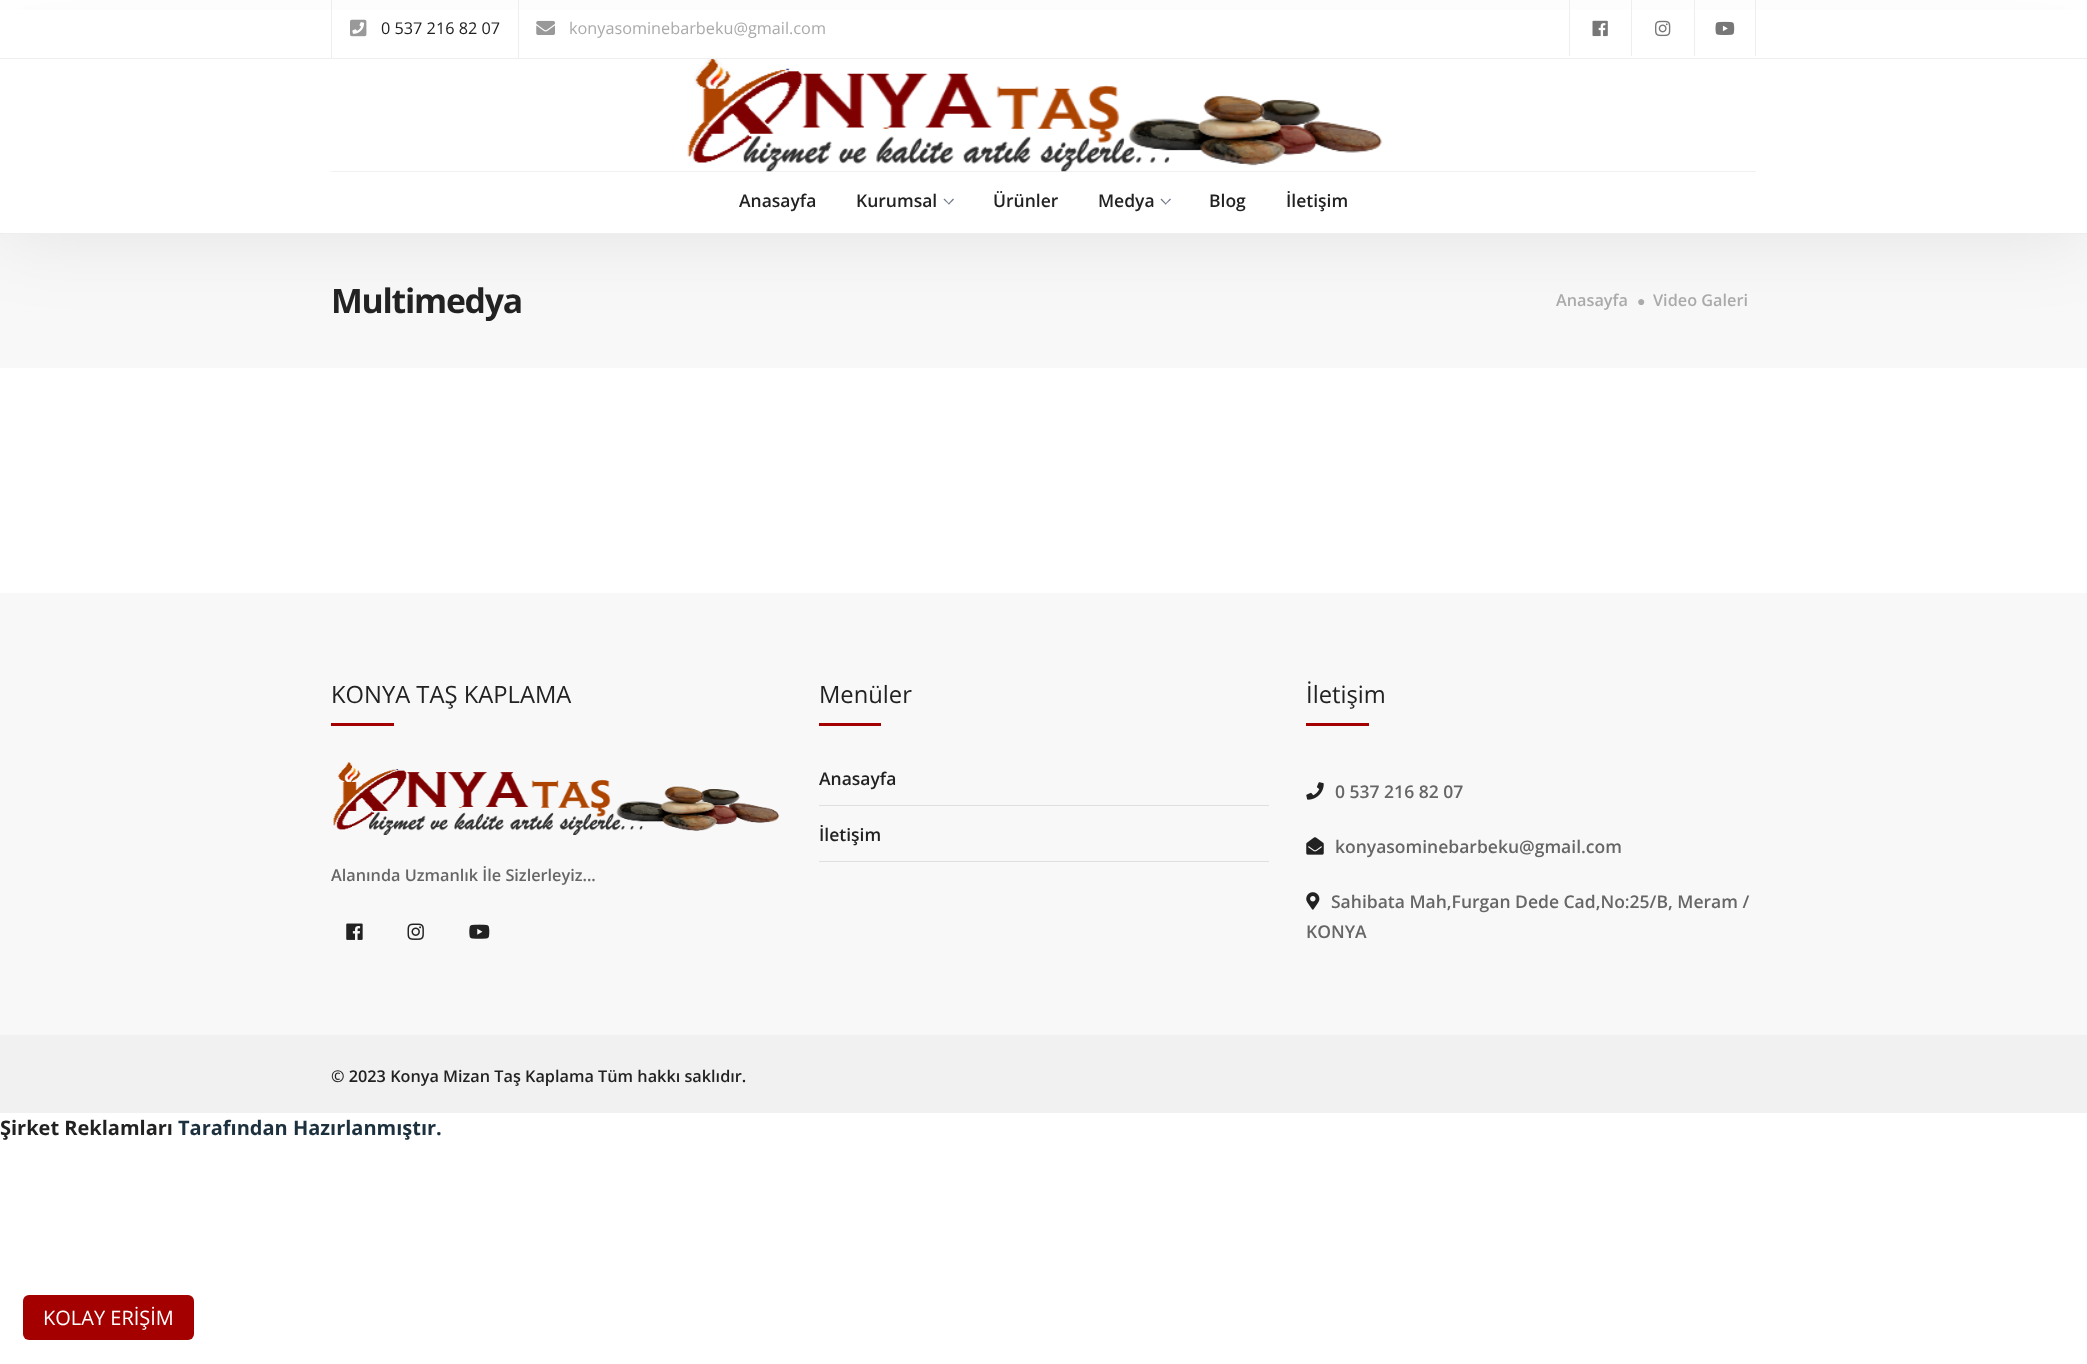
async function draw(canvas) {
  canvas.width = 2087
  canvas.height = 1364
  const ctx = canvas.getContext('2d')
  ctx.miterLimit = 4
  ctx.fontKerning = 'normal'
  async function loadImage(src) {
    const img = new Image()
    img.src = src
    await img.decode()
    return img
  }

  ctx.fillStyle = '#fff'
  ctx.fillRect(0, 0, 2087, 1364)
  ctx.fillStyle = '#f8f8f8'
  ctx.fillRect(0, 234, 2087, 134)
  ctx.fillStyle = '#00000017'
  ctx.filter = 'blur(40.5px)'
  ctx.beginPath()
  ctx.rect(0, 59, 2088, 175)
  ctx.fill()
  ctx.filter = 'none'
  ctx.fillStyle = '#fff'
  ctx.fillRect(0, 10, 2087, 48)
  ctx.fillStyle = '#eee'
  ctx.fillRect(0, 58, 2087, 1)
  ctx.fillRect(331, 0, 1, 58)
  ctx.drawImage(await loadImage('image0.png'), 350, 19, 17, 18)
  ctx.font = '16.25px Open Sans'
  ctx.fillStyle = '#222'
  ctx.fillText('0 537 216 82 07', 381, 34)
  ctx.fillStyle = '#eee'
  ctx.fillRect(518, 0, 1, 58)
  ctx.drawImage(await loadImage('image1.png'), 536, 20, 19, 15)
  ctx.fillStyle = '#aaa'
  ctx.fillText('konyasominebarbeku@gmail.com', 569, 34)
  ctx.fillStyle = '#eee'
  ctx.fillRect(1569, 0, 1, 56)
  ctx.drawImage(await loadImage('image2.png'), 1592, 20, 16, 17)
  ctx.fillRect(1631, 0, 1, 56)
  ctx.drawImage(await loadImage('image3.png'), 1655, 20, 16, 17)
  ctx.fillRect(1755, 0, 1, 56)
  ctx.fillRect(1694, 0, 1, 56)
  ctx.drawImage(await loadImage('image4.png'), 1715, 21, 20, 14)
  ctx.fillStyle = '#fff'
  ctx.fillRect(0, 59, 2087, 174)
  ctx.fillStyle = '#eee'
  ctx.fillRect(0, 233, 2087, 1)
  ctx.fillStyle = '#f1f1f1'
  ctx.fillRect(331, 171, 1425, 1)
  ctx.drawImage(await loadImage('image5.png'), 687, 59, 696, 113)
  ctx.font = '600 17.5px Open Sans'
  ctx.fillStyle = '#222'
  ctx.fillText('Anasayfa', 739, 207)
  ctx.fillText('Kurumsal', 856, 207)
  ctx.fillStyle = '#70798b'
  ctx.beginPath()
  ctx.moveTo(953, 198.5)
  ctx.lineTo(954, 199.5)
  ctx.lineTo(949, 204.5)
  ctx.lineTo(948, 204)
  ctx.closePath()
  ctx.fill()
  ctx.beginPath()
  ctx.moveTo(944.5, 198.5)
  ctx.lineTo(949.5, 204)
  ctx.lineTo(949, 204.5)
  ctx.lineTo(943.5, 199.5)
  ctx.closePath()
  ctx.fill()
  ctx.fillStyle = '#222'
  ctx.fillText('Ürünler', 993, 207)
  ctx.fillText('Medya', 1098, 207)
  ctx.fillStyle = '#70798b'
  ctx.beginPath()
  ctx.moveTo(1170, 198.5)
  ctx.lineTo(1171, 199.5)
  ctx.lineTo(1165.5, 204.5)
  ctx.lineTo(1165, 204)
  ctx.closePath()
  ctx.fill()
  ctx.beginPath()
  ctx.moveTo(1161.5, 198.5)
  ctx.lineTo(1166.5, 204)
  ctx.lineTo(1165.5, 204.5)
  ctx.lineTo(1160.5, 199.5)
  ctx.closePath()
  ctx.fill()
  ctx.fillStyle = '#222'
  ctx.fillText('Blog', 1209, 207)
  ctx.fillText('İletişim', 1286, 207)
  ctx.letterSpacing = '-1.25px'
  ctx.font = 'bold 33.75px Open Sans'
  ctx.fillText('Multimedya', 331, 313)
  ctx.letterSpacing = '0px'
  ctx.font = '600 16.25px Open Sans'
  ctx.fillStyle = '#aaa'
  ctx.fillText('Anasayfa', 1556, 306)
  ctx.font = 'bold 14px Liberation Sans'
  ctx.fillText('●', 1637, 306)
  ctx.font = '600 16.25px Open Sans'
  ctx.fillText('Video Galeri', 1653, 306)
  ctx.fillStyle = '#f8f8f8'
  ctx.fillRect(0, 593, 2087, 442)
  ctx.font = '23.75px Open Sans'
  ctx.fillStyle = '#222'
  ctx.fillText('KONYA TAŞ KAPLAMA', 331, 703)
  ctx.fillStyle = '#a40000'
  ctx.fillRect(331, 723, 63, 3)
  ctx.drawImage(await loadImage('image6.png'), 333, 762, 447, 73)
  ctx.font = '600 16.25px Open Sans'
  ctx.fillStyle = '#666'
  ctx.fillText('Alanında Uzmanlık İle Sizlerleyiz...', 331, 881)
  ctx.drawImage(await loadImage('image7.png'), 346, 923, 17, 17)
  ctx.drawImage(await loadImage('image8.png'), 407, 923, 17, 17)
  ctx.drawImage(await loadImage('image9.png'), 469, 924, 21, 15)
  ctx.font = '23.75px Open Sans'
  ctx.fillStyle = '#222'
  ctx.fillText('Menüler', 819, 703)
  ctx.fillStyle = '#a40000'
  ctx.fillRect(819, 723, 62, 3)
  ctx.fillStyle = '#dfdfdf'
  ctx.fillRect(819, 805, 450, 1)
  ctx.font = '600 17.5px Open Sans'
  ctx.fillStyle = '#222'
  ctx.fillText('Anasayfa', 819, 785)
  ctx.fillStyle = '#dfdfdf'
  ctx.fillRect(819, 861, 450, 1)
  ctx.fillStyle = '#222'
  ctx.fillText('İletişim', 819, 841)
  ctx.font = '23.75px Open Sans'
  ctx.fillText('İletişim', 1306, 703)
  ctx.fillStyle = '#a40000'
  ctx.fillRect(1306, 723, 63, 3)
  ctx.drawImage(await loadImage('image10.png'), 1306, 782, 18, 18)
  ctx.font = '600 17.5px Open Sans'
  ctx.fillStyle = '#666'
  ctx.fillText('0 537 216 82 07', 1335, 798)
  ctx.drawImage(await loadImage('image11.png'), 1306, 837, 18, 18)
  ctx.fillText('konyasominebarbeku@gmail.com', 1335, 853)
  ctx.drawImage(await loadImage('image12.png'), 1306, 892, 14, 18)
  ctx.fillText('Sahibata Mah,Furgan Dede Cad,No:25/B, Meram /', 1331, 908)
  ctx.fillText('KONYA', 1306, 938)
  ctx.fillStyle = '#f1f1f1'
  ctx.fillRect(0, 1035, 2087, 78)
  ctx.font = '600 16.25px Open Sans'
  ctx.fillStyle = '#222'
  ctx.fillText('© 2023 Konya Mizan Taş Kaplama Tüm hakkı saklıdır.', 331, 1082)
  ctx.font = 'bold 20px Open Sans'
  ctx.fillText('Şirket Reklamları', 0, 1135)
  ctx.fillStyle = '#1c303e'
  ctx.fillText('Tarafından Hazırlanmıştır.', 178, 1135)
  ctx.fillStyle = '#a40000'
  ctx.beginPath()
  ctx.roundRect(23, 1295, 171, 45, 6)
  ctx.fill()
  ctx.font = '20px Open Sans'
  ctx.fillStyle = '#fff'
  ctx.fillText('KOLAY ERİŞİM', 43, 1325)
}

draw(document.querySelector('canvas'))
